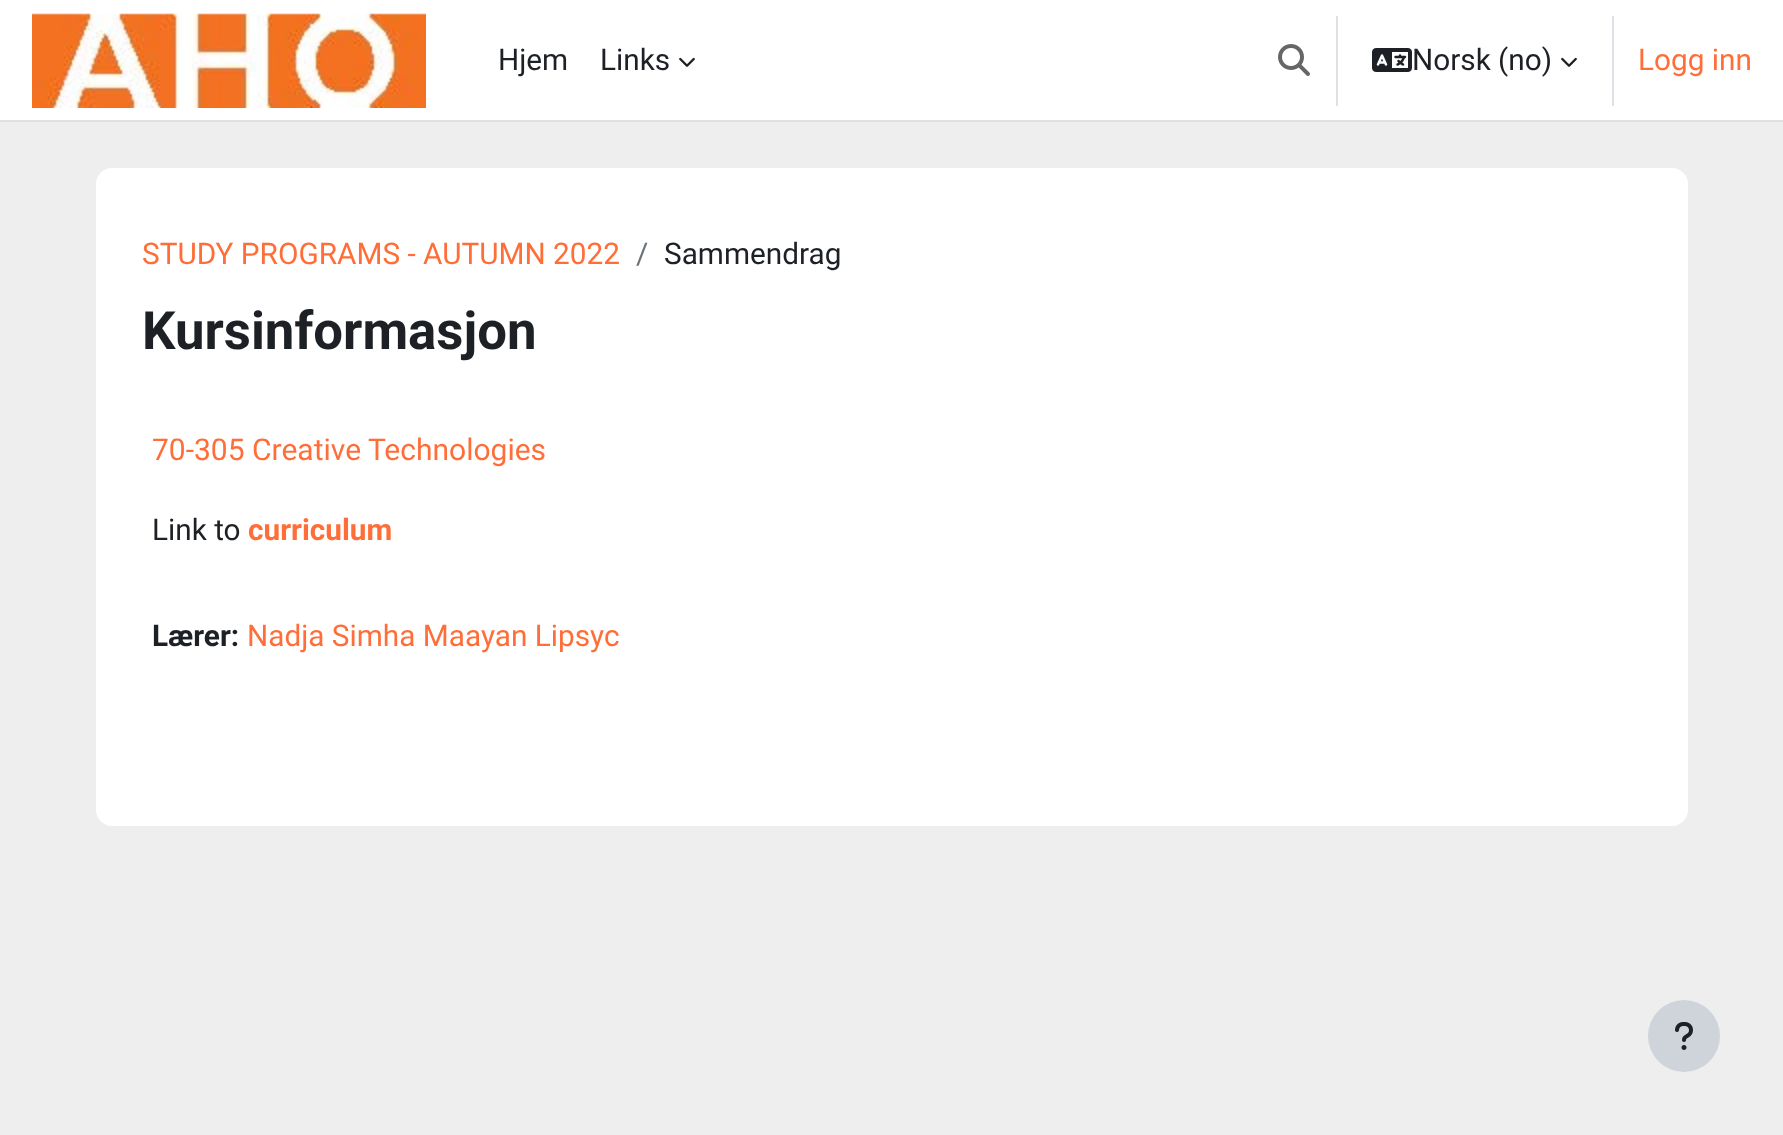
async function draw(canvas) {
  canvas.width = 1783
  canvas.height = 1135
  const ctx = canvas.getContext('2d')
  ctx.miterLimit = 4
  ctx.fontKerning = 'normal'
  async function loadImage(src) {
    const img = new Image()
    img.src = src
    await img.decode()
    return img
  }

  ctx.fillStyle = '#eee'
  ctx.fillRect(0, 0, 1783, 1135)
  ctx.fillStyle = '#fff'
  ctx.fillRect(0, 0, 1783, 120)
  ctx.fillStyle = '#dee2e6'
  ctx.fillRect(0, 120, 1783, 2)
  ctx.drawImage(await loadImage('image0.png'), 32, 13, 394, 95)
  ctx.font = '29.75px Roboto'
  ctx.fillStyle = '#1d2125'
  ctx.fillText('Hjem', 498, 70)
  ctx.fillText('Links', 600, 70)
  ctx.drawImage(await loadImage('image1.png'), 679, 57, 16, 10)
  ctx.drawImage(await loadImage('image2.png'), 1278, 44, 32, 32)
  ctx.fillStyle = '#dee2e6'
  ctx.fillRect(1336, 16, 2, 90)
  ctx.drawImage(await loadImage('image3.png'), 1372, 48, 40, 24)
  ctx.fillStyle = '#1d2125'
  ctx.fillText('Norsk (no)', 1412, 70)
  ctx.drawImage(await loadImage('image1.png'), 1561, 57, 16, 10)
  ctx.fillStyle = '#dee2e6'
  ctx.fillRect(1612, 16, 2, 90)
  ctx.fillStyle = '#ff6e38'
  ctx.fillText('Logg inn', 1638, 70)
  ctx.fillStyle = '#fff'
  ctx.beginPath()
  ctx.roundRect(96, 168, 1592, 658, 16)
  ctx.fill()
  ctx.fillStyle = '#ff6e38'
  ctx.fillText('STUDY PROGRAMS - AUTUMN 2022', 142, 264)
  ctx.fillStyle = '#6a737b'
  ctx.fillText('/', 636, 264)
  ctx.fillStyle = '#1d2125'
  ctx.fillText('Sammendrag', 664, 264)
  ctx.font = 'bold 52.75px Roboto'
  ctx.fillText('Kursinformasjon', 142, 349)
  ctx.font = '30px Roboto'
  ctx.fillStyle = '#ff6e38'
  ctx.fillText('70-305 Creative Technologies', 152, 460)
  ctx.font = '29.75px Roboto'
  ctx.fillStyle = '#1d2125'
  ctx.fillText('Link to', 152, 540)
  ctx.font = 'bold 29.75px Roboto'
  ctx.fillStyle = '#ff6e38'
  ctx.fillText('curriculum', 248, 540)
  ctx.fillStyle = '#1d2125'
  ctx.fillText('Lærer:', 152, 646)
  ctx.font = '29.75px Roboto'
  ctx.fillStyle = '#ff6e38'
  ctx.fillText('Nadja Simha Maayan Lipsyc', 247, 646)
  ctx.fillStyle = '#ced4da'
  ctx.beginPath()
  ctx.arc(1684, 1036, 36, 0, 2 * Math.PI)
  ctx.fill()
  ctx.drawImage(await loadImage('image4.png'), 1675, 1022, 18, 28)
}

draw(document.querySelector('canvas'))
